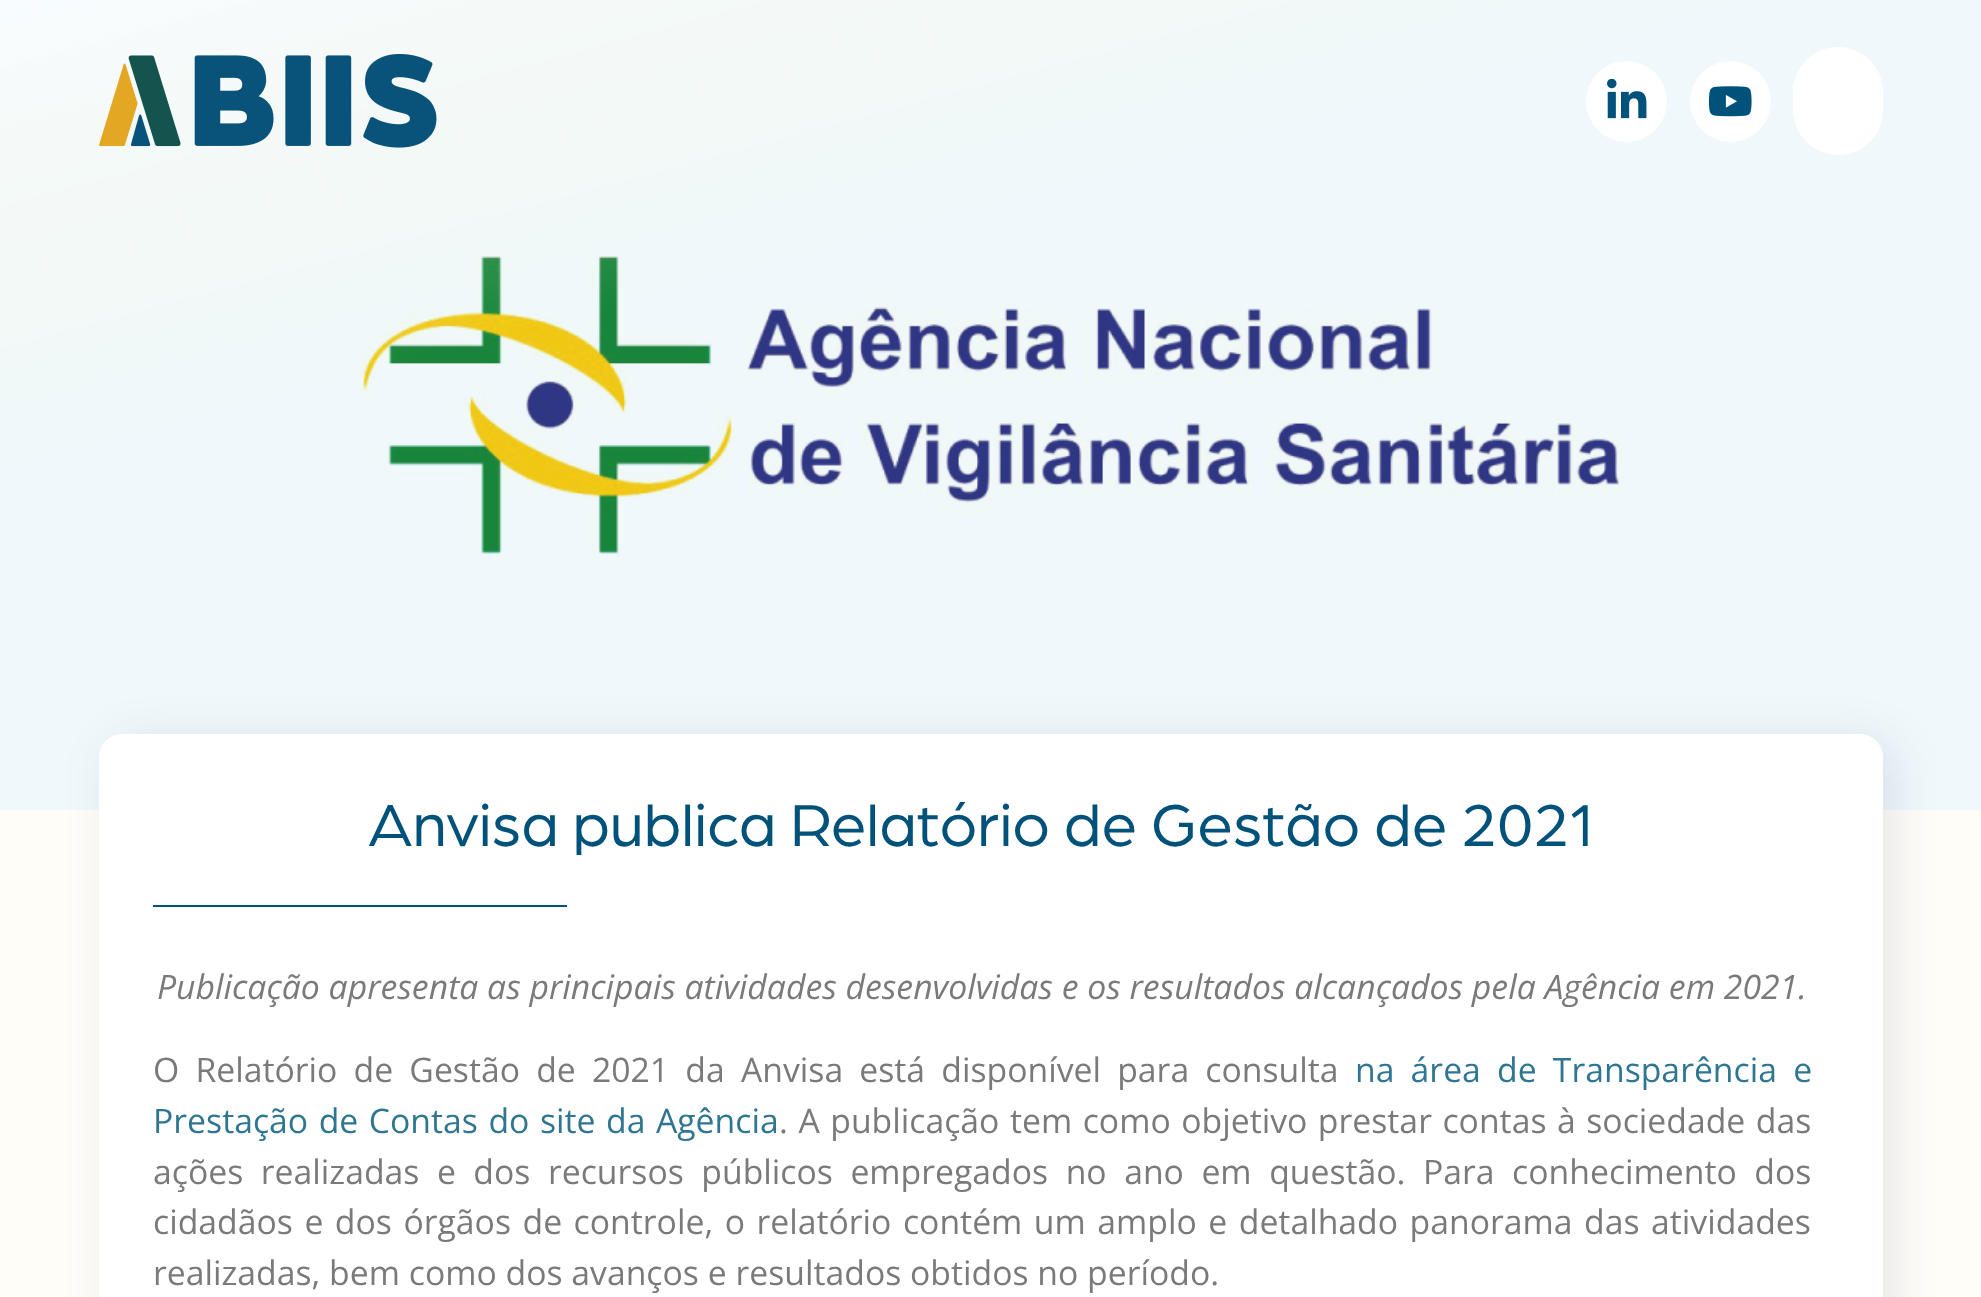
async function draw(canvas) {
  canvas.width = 1981
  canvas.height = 1297
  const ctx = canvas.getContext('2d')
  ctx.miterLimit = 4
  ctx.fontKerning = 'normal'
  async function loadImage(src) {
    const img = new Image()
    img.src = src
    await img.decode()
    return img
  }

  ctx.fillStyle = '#fffdf8'
  ctx.fillRect(0, 0, 1981, 1297)
  ctx.drawImage(await loadImage('image3.png'), 0, 0, 1981, 810)
  ctx.drawImage(await loadImage('image0.png'), 99, 54, 338, 94)
  ctx.fillStyle = '#fff'
  ctx.beginPath()
  ctx.arc(1626.5, 101.5, 40.5, 0, 2 * Math.PI)
  ctx.fill()
  ctx.drawImage(await loadImage('image1.png'), 1607, 79, 40, 40)
  ctx.beginPath()
  ctx.arc(1730.5, 101.5, 40.5, 0, 2 * Math.PI)
  ctx.fill()
  ctx.drawImage(await loadImage('image2.png'), 1708, 86, 44, 31)
  ctx.beginPath()
  ctx.roundRect(1793, 47, 90, 108, 45)
  ctx.fill()
  ctx.fillStyle = '#091c4b1a'
  ctx.filter = 'blur(22.5px)'
  ctx.beginPath()
  ctx.roundRect(110, 740, 1785, 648, 23)
  ctx.fill()
  ctx.filter = 'none'
  ctx.fillStyle = '#fff'
  ctx.beginPath()
  ctx.roundRect(99, 734, 1784, 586, 23)
  ctx.fill()
  ctx.font = '63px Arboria'
  ctx.fillStyle = '#00527b'
  ctx.fillText('Anvisa publica Relatório de Gestão de 2021', 368, 846)
  ctx.fillRect(153, 905, 414, 2)
  ctx.font = 'italic 33.75px Open Sans'
  ctx.fillStyle = '#7a7a7a'
  ctx.fillText('Publicação apresenta as principais atividades desenvolvidas e os resultados alcançados pela Agência em 2021.', 157, 999)
  ctx.wordSpacing = '7.4px'
  ctx.font = '33.75px Open Sans'
  ctx.fillText('O Relatório de Gestão de 2021 da Anvisa está disponível para consulta', 153, 1082)
  ctx.fillStyle = '#2f7692'
  ctx.fillText('na área de Transparência e', 1355, 1082)
  ctx.wordSpacing = '1.75px'
  ctx.fillText('Prestação de Contas do site da Agência', 153, 1133)
  ctx.fillStyle = '#7a7a7a'
  ctx.fillText('. A publicação tem como objetivo prestar contas à sociedade das', 779, 1133)
  ctx.wordSpacing = '8.75px'
  ctx.fillText('ações realizadas e dos recursos públicos empregados no ano em questão. Para conhecimento dos', 153, 1184)
  ctx.wordSpacing = '2.75px'
  ctx.fillText('cidadãos e dos órgãos de controle, o relatório contém um amplo e detalhado panorama das atividades', 153, 1234)
  ctx.wordSpacing = '0px'
  ctx.fillText('realizadas, bem como dos avanços e resultados obtidos no período.', 153, 1285)
}

draw(document.querySelector('canvas'))
